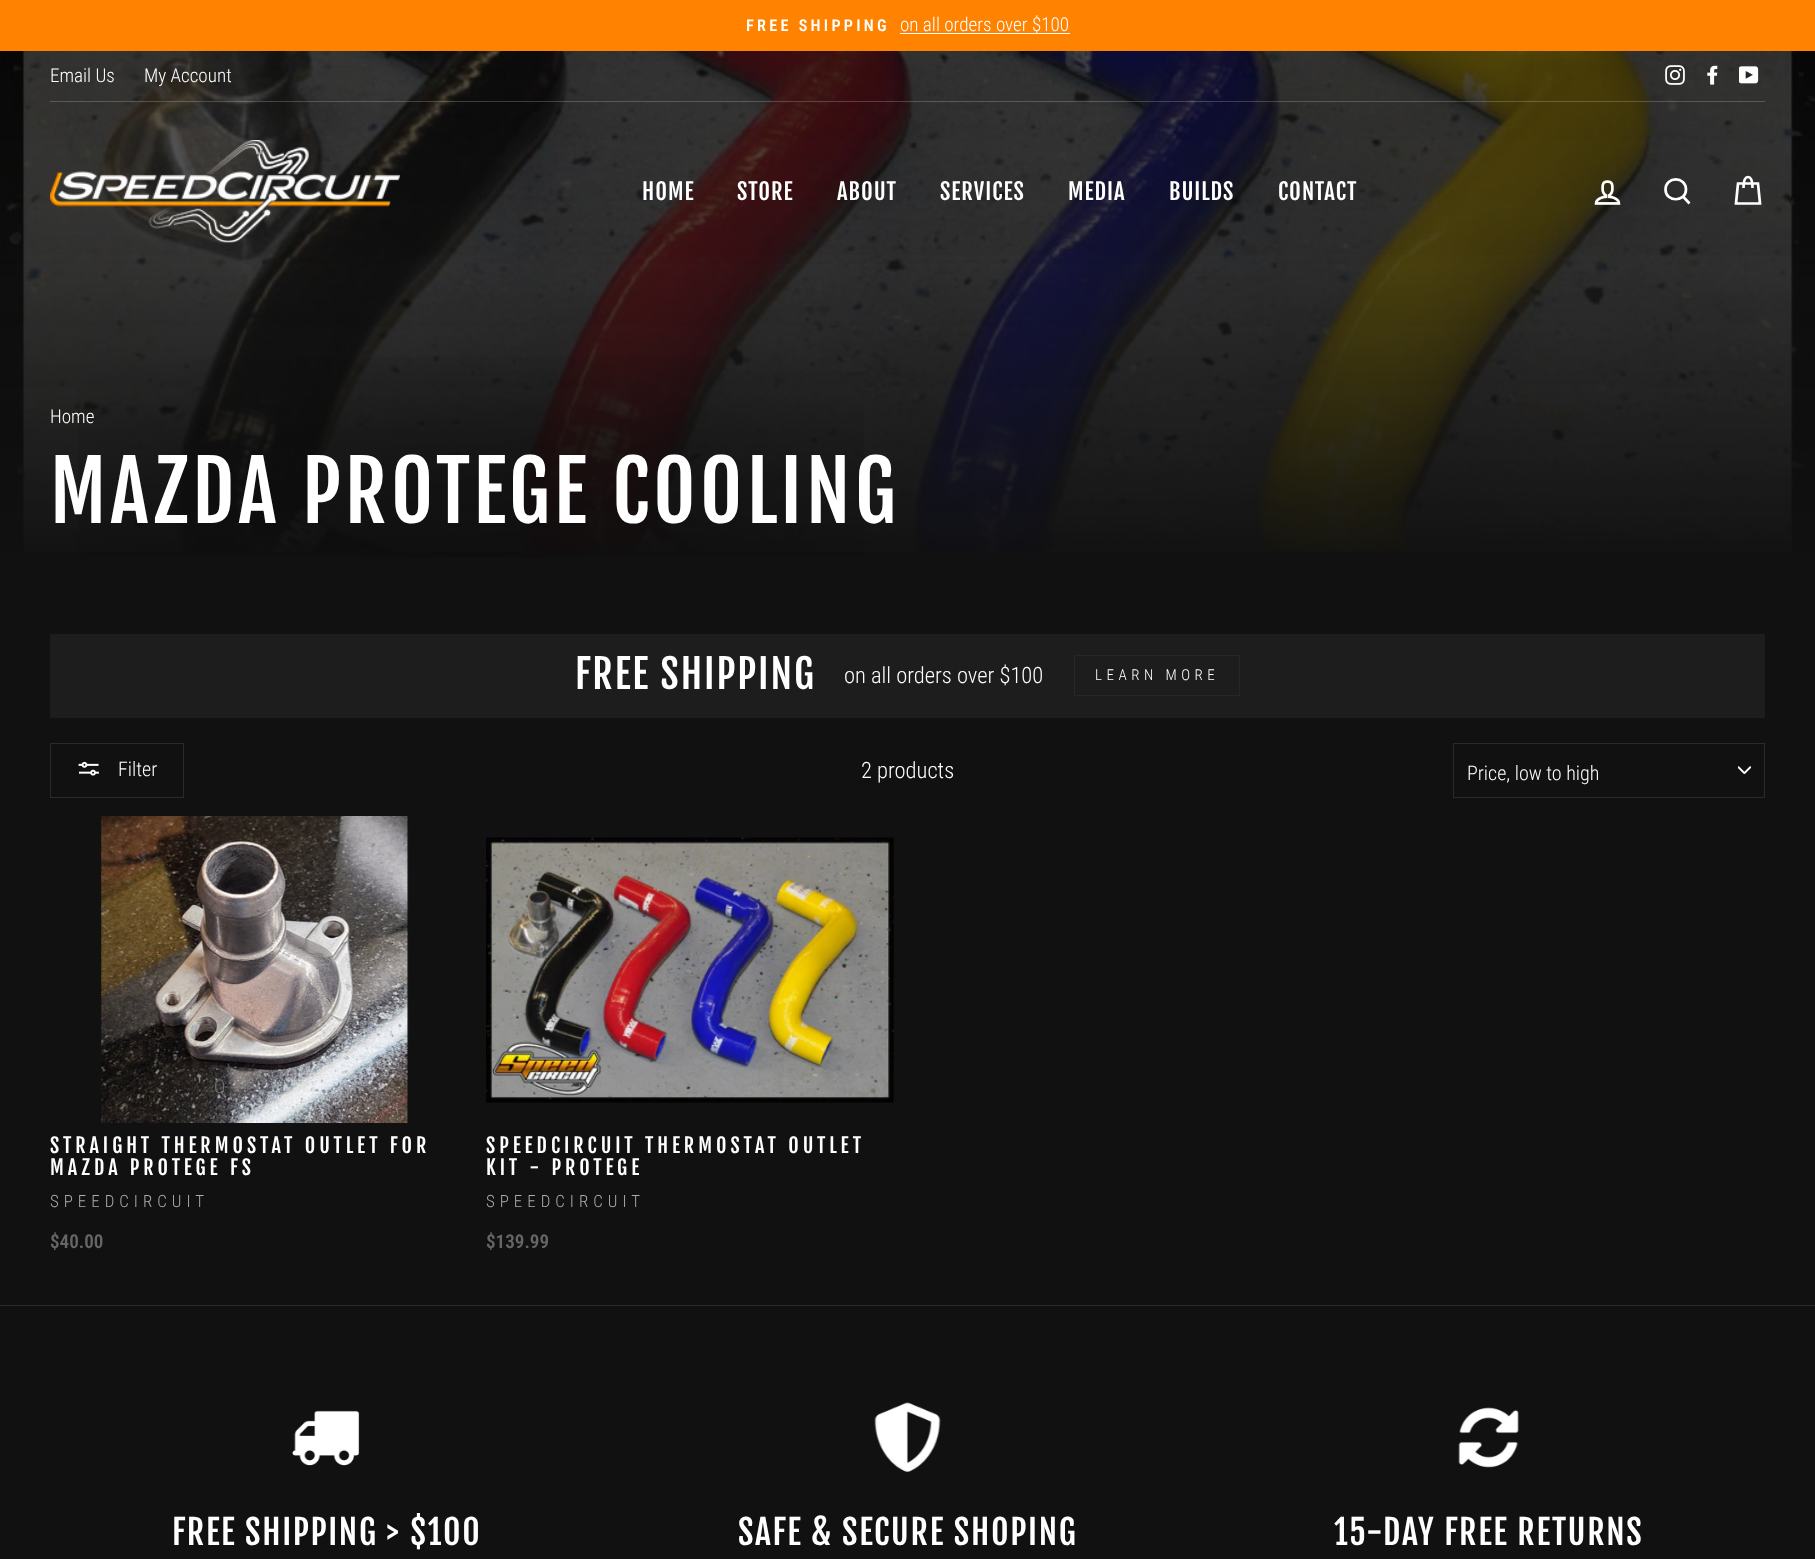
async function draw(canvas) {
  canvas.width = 1815
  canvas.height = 1559
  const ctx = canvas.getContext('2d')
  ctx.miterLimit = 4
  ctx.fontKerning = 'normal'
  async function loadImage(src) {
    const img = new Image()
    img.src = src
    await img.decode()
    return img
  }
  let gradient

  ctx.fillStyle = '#111'
  ctx.fillRect(0, 0, 1815, 1559)
  ctx.fillStyle = '#ff8200'
  ctx.fillRect(0, 0, 1815, 51)
  ctx.letterSpacing = '3.25px'
  ctx.font = '600 16.25px Roboto Condensed'
  ctx.fillStyle = '#fff'
  ctx.fillText('FREE SHIPPING', 746, 31)
  ctx.letterSpacing = '0px'
  ctx.font = '300 19.1px Roboto Condensed'
  ctx.fillText('on all orders over $100', 900, 31)
  ctx.fillRect(900, 33, 170, 1)
  ctx.drawImage(await loadImage('image5.png'), 0, 51, 1815, 501)
  gradient = ctx.createLinearGradient(908, 51, 908, 280)
  gradient.addColorStop(0, '#0000004d')
  gradient.addColorStop(1, '#00000000')
  ctx.fillStyle = gradient
  ctx.fillRect(0, 51, 1815, 204)
  ctx.fillStyle = '#ffffff33'
  ctx.fillRect(50, 101, 1715, 1)
  ctx.fillStyle = '#fff'
  ctx.fillText('Email Us', 50, 82)
  ctx.fillText('My Account', 144, 82)
  ctx.drawImage(await loadImage('image0.png'), 1665, 65, 20, 20)
  ctx.drawImage(await loadImage('image1.png'), 1707, 65, 11, 20)
  ctx.drawImage(await loadImage('image2.png'), 1739, 66, 20, 18)
  ctx.drawImage(await loadImage('image3.png'), 50, 140, 350, 103)
  ctx.letterSpacing = '1px'
  ctx.font = '22.5px Fjalla One'
  ctx.fillText('HOME', 642, 200)
  ctx.fillText('STORE', 737, 200)
  ctx.fillText('ABOUT', 837, 200)
  ctx.fillText('SERVICES', 940, 200)
  ctx.fillText('MEDIA', 1068, 200)
  ctx.fillText('BUILDS', 1169, 200)
  ctx.fillText('CONTACT', 1278, 200)
  ctx.drawImage(await loadImage('image4.png'), 1594, 180, 27, 25)
  ctx.beginPath()
  ctx.moveTo(1686, 189.5)
  ctx.bezierCurveTo(1686, 202.5, 1665.5, 202.5, 1665.5, 189.5)
  ctx.bezierCurveTo(1665.5, 176, 1686, 176, 1686, 189.5)
  ctx.closePath()
  ctx.moveTo(1689.5, 203.5)
  ctx.lineTo(1683, 196.5)
  ctx.strokeStyle = '#fff'
  ctx.lineWidth = 2.7
  ctx.stroke()
  ctx.beginPath()
  ctx.moveTo(1743.5, 188)
  ctx.bezierCurveTo(1743.5, 179.5, 1745.5, 177, 1748, 177)
  ctx.bezierCurveTo(1750.5, 177, 1752.5, 179.5, 1752.5, 188)
  ctx.moveTo(1738, 183.5)
  ctx.lineTo(1758, 183.5)
  ctx.lineTo(1760, 203.5)
  ctx.lineTo(1736, 203.5)
  ctx.closePath()
  ctx.stroke()
  gradient = ctx.createRadialGradient(475, 1816, 0, 475, 1816, 955)
  gradient.addColorStop(0, '#0000004d')
  gradient.addColorStop(0.6, '#00000000')
  ctx.fillStyle = gradient
  ctx.beginPath()
  ctx.rect(78, 357, 786, 200)
  ctx.save()
  ctx.clip()
  ctx.scale(1, 254 / 955)
  ctx.fillRect(0, 0, 1815, 5862)
  ctx.restore()
  ctx.letterSpacing = '0px'
  ctx.font = '300 19.1px Roboto Condensed'
  ctx.fillStyle = '#fff'
  ctx.fillText('Home', 50, 423)
  ctx.letterSpacing = '4.1px'
  ctx.font = '81.5px Fjalla One'
  ctx.fillText('MAZDA PROTEGE COOLING', 50, 523)
  ctx.fillStyle = '#1e1d1d'
  ctx.fillRect(50, 634, 1715, 84)
  ctx.letterSpacing = '2px'
  ctx.font = '39.5px Fjalla One'
  ctx.fillStyle = '#fff'
  ctx.fillText('FREE SHIPPING', 575, 689)
  ctx.letterSpacing = '0px'
  ctx.font = '300 22.5px Roboto Condensed'
  ctx.fillText('on all orders over $100', 844, 683)
  ctx.strokeStyle = '#282726'
  ctx.lineWidth = 1
  ctx.strokeRect(1074.5, 655.5, 165, 40)
  ctx.letterSpacing = '4.5px'
  ctx.font = '300 15px Roboto Condensed'
  ctx.fillText('LEARN MORE', 1095, 680)
  ctx.strokeStyle = '#2b2a27'
  ctx.strokeRect(50.5, 743.5, 133, 54)
  ctx.drawImage(await loadImage('image6.png'), 78, 761, 21, 15)
  ctx.letterSpacing = '0px'
  ctx.font = '300 20px Roboto Condensed'
  ctx.fillText('Filter', 118, 776)
  ctx.font = '300 22.5px Roboto Condensed'
  ctx.fillText('2 products', 861, 778)
  ctx.drawImage(await loadImage('image7.png'), 1738, 766, 13, 8)
  ctx.strokeRect(1453.5, 743.5, 311, 54)
  ctx.font = '300 20px Roboto Condensed'
  ctx.fillText('Price, low to high', 1467, 780)
  ctx.drawImage(await loadImage('image8.png'), 101, 816, 308, 307)
  ctx.font = '300 19.1px Roboto Condensed'
  ctx.fillStyle = '#727275'
  ctx.fillText('Q', 214, 1093)
  ctx.letterSpacing = '4px'
  ctx.font = '20px Fjalla One'
  ctx.fillStyle = '#fff'
  ctx.fillText('STRAIGHT THERMOSTAT OUTLET FOR', 50, 1153)
  ctx.fillText('MAZDA PROTEGE FS', 50, 1175)
  ctx.letterSpacing = '5px'
  ctx.font = '300 16.9px Roboto Condensed'
  ctx.fillStyle = '#acacac'
  ctx.fillText('SPEEDCIRCUIT', 50, 1207)
  ctx.letterSpacing = '0px'
  ctx.font = '600 19.1px Roboto Condensed'
  ctx.fillStyle = '#666'
  ctx.fillText('$40.00', 50, 1248)
  ctx.drawImage(await loadImage('image9.png'), 486, 837, 408, 266)
  ctx.letterSpacing = '4px'
  ctx.font = '20px Fjalla One'
  ctx.fillStyle = '#fff'
  ctx.fillText('SPEEDCIRCUIT THERMOSTAT OUTLET', 486, 1153)
  ctx.fillText('KIT - PROTEGE', 486, 1175)
  ctx.letterSpacing = '5px'
  ctx.font = '300 16.9px Roboto Condensed'
  ctx.fillStyle = '#acacac'
  ctx.fillText('SPEEDCIRCUIT', 486, 1207)
  ctx.letterSpacing = '0px'
  ctx.font = '600 19.1px Roboto Condensed'
  ctx.fillStyle = '#666'
  ctx.fillText('$139.99', 486, 1248)
  ctx.fillStyle = '#2b2a27'
  ctx.fillRect(0, 1305, 1815, 1)
  ctx.drawImage(await loadImage('image10.png'), 292, 1410, 68, 56)
  ctx.letterSpacing = '1.7px'
  ctx.font = '33.75px Fjalla One'
  ctx.fillStyle = '#fff'
  ctx.fillText('FREE SHIPPING > $100', 172, 1545)
  ctx.drawImage(await loadImage('image11.png'), 874, 1402, 67, 70)
  ctx.fillText('SAFE & SECURE SHOPING', 738, 1545)
  ctx.drawImage(await loadImage('image12.png'), 1458, 1407, 61, 61)
  ctx.fillText('15-DAY FREE RETURNS', 1334, 1545)
}

draw(document.querySelector('canvas'))
